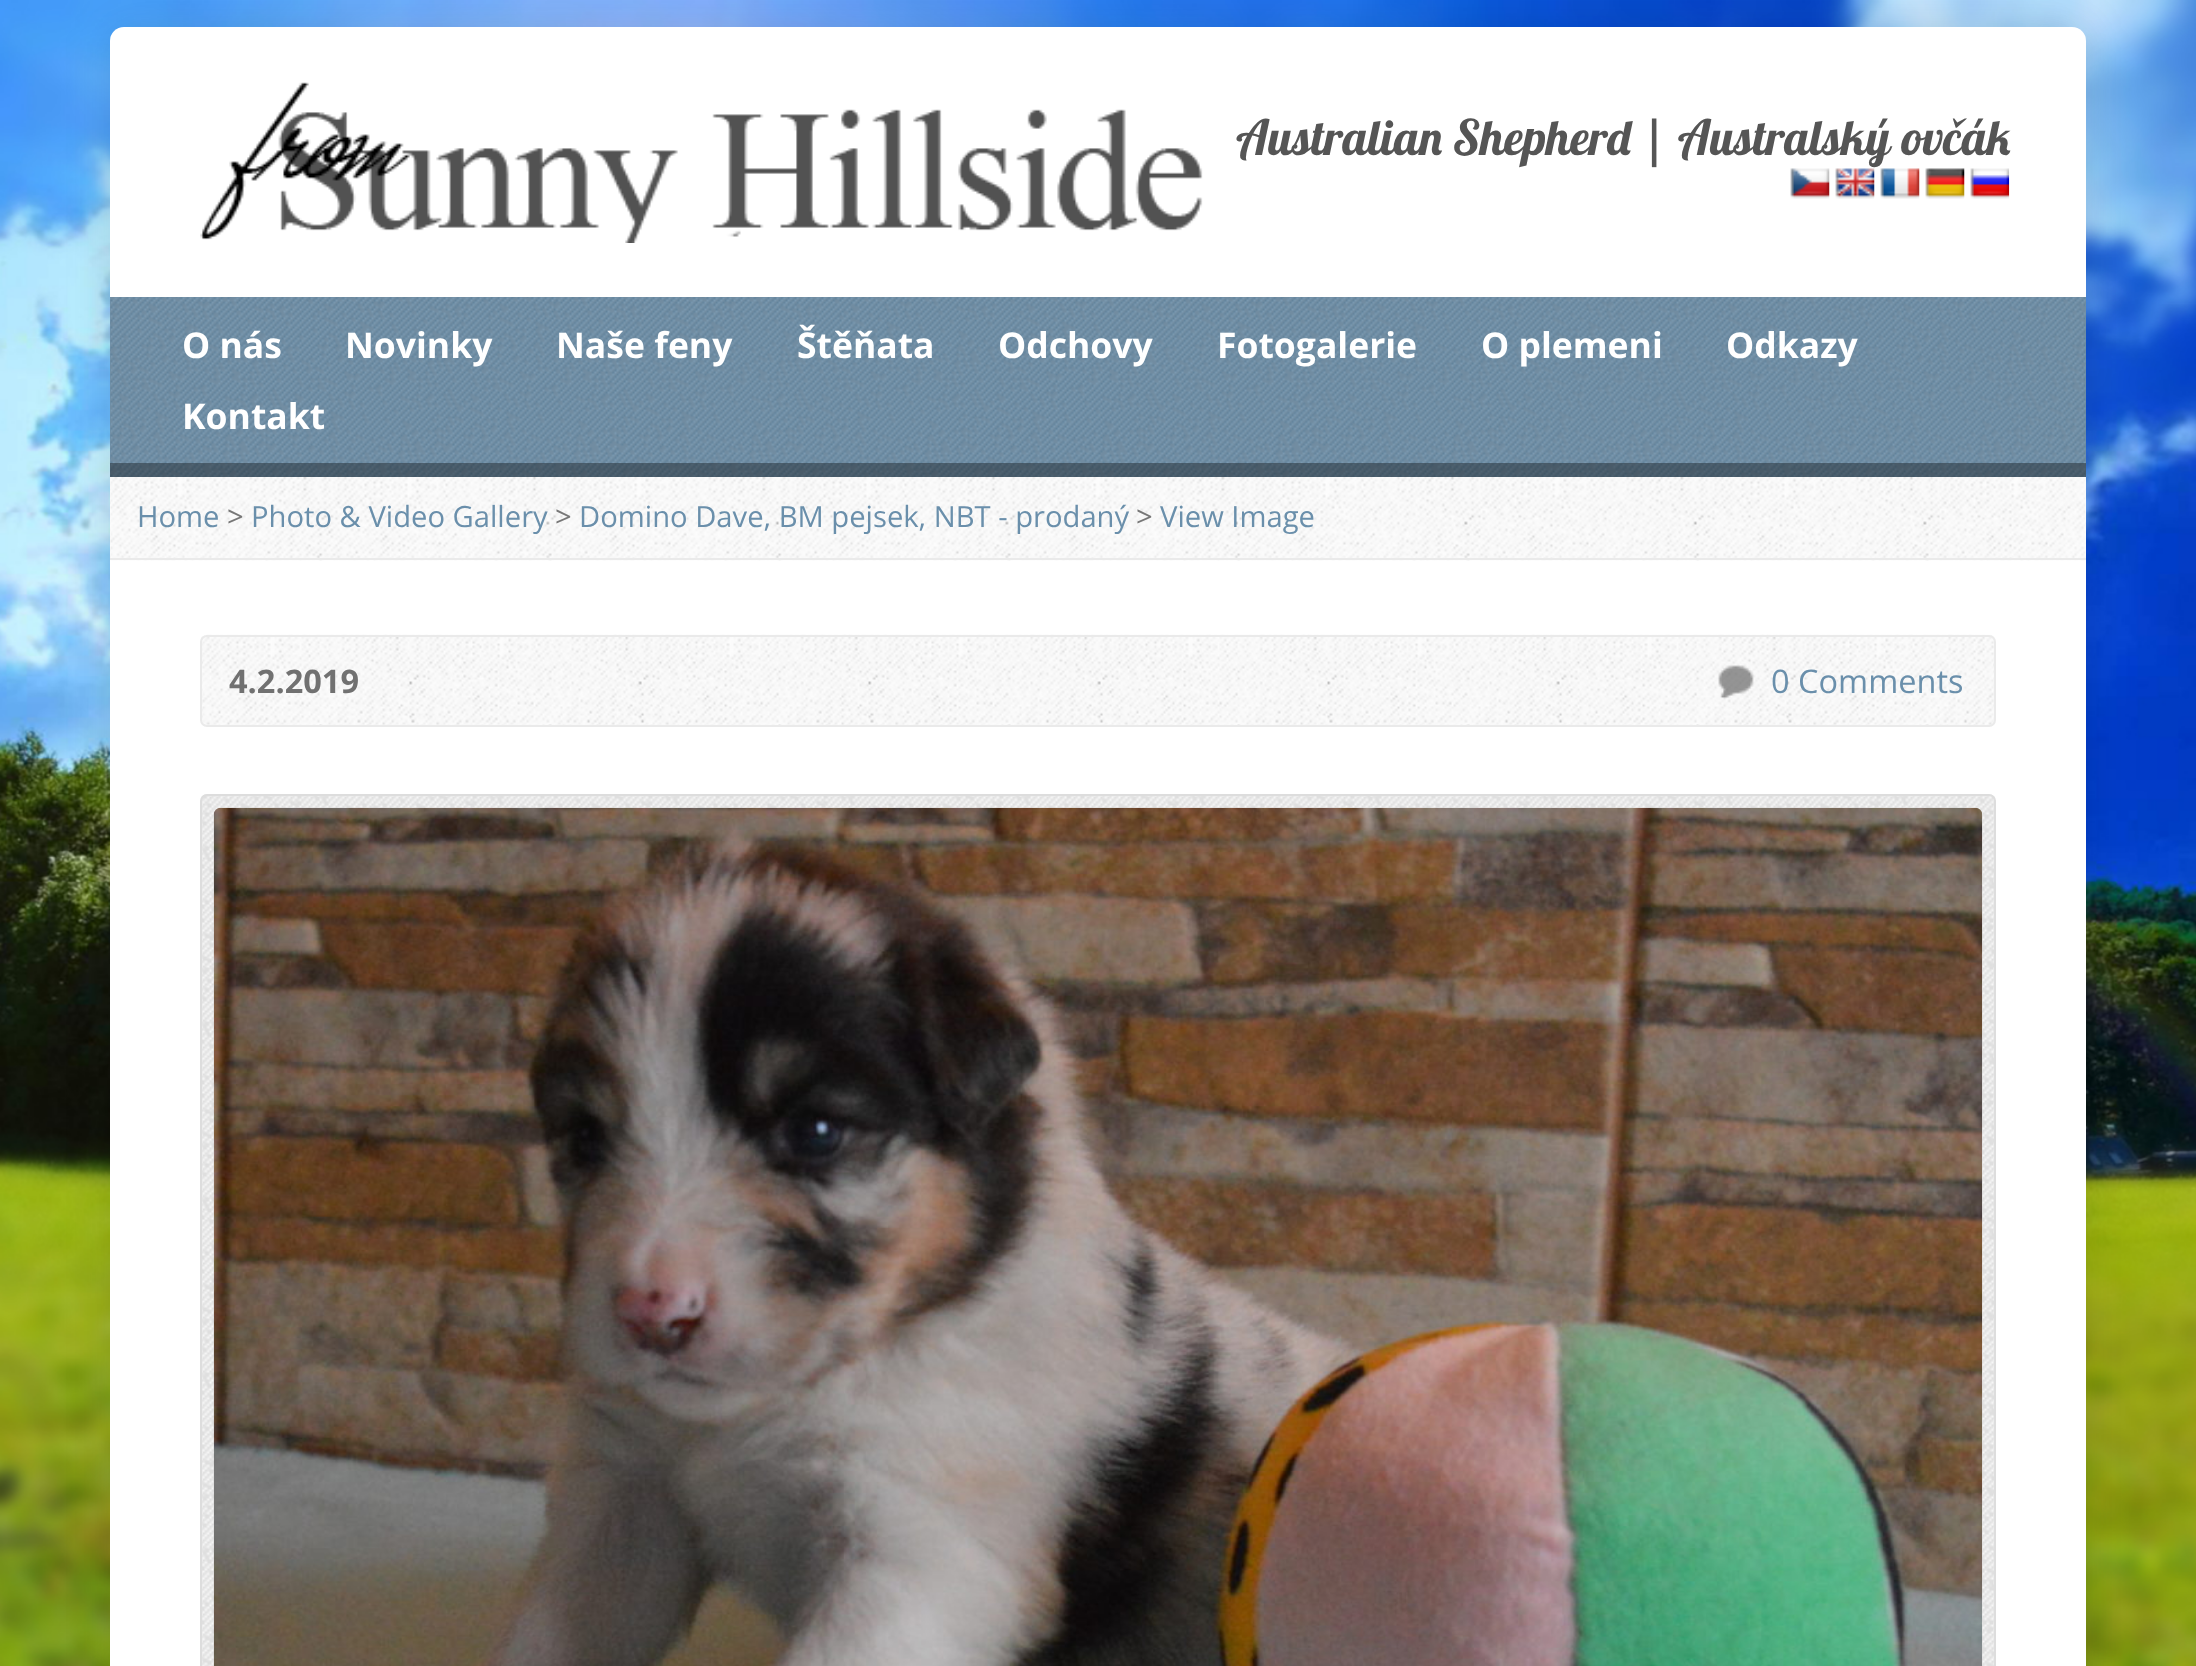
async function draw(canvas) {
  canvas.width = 2196
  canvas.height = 1666
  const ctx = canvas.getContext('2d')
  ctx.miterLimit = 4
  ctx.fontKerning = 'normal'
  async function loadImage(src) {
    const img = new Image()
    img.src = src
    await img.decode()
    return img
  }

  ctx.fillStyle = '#fff'
  ctx.fillRect(0, 0, 2196, 1666)
  ctx.drawImage(await loadImage('image0.png'), 0, 0, 2196, 1666)
  ctx.fillStyle = '#0000001f'
  ctx.filter = 'blur(22.5px)'
  ctx.beginPath()
  ctx.roundRect(110, 27, 1976, 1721, 14)
  ctx.fill()
  ctx.filter = 'none'
  ctx.fillStyle = '#fff'
  ctx.beginPath()
  ctx.roundRect(110, 27, 1976, 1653, 14)
  ctx.fill()
  ctx.drawImage(await loadImage('image1.png'), 200, 82, 1003, 161)
  ctx.font = '48.6px Lobster'
  ctx.fillStyle = '#555'
  ctx.fillText('Australian Shepherd | Australský ovčák', 1236, 155)
  ctx.drawImage(await loadImage('image2.png'), 1790, 168, 40, 31)
  ctx.drawImage(await loadImage('image3.png'), 1835, 168, 40, 31)
  ctx.drawImage(await loadImage('image4.png'), 1880, 168, 40, 31)
  ctx.drawImage(await loadImage('image5.png'), 1925, 168, 40, 31)
  ctx.drawImage(await loadImage('image6.png'), 1970, 168, 40, 31)
  ctx.fillStyle = '#6a8fab'
  ctx.fillRect(110, 297, 1976, 180)
  ctx.drawImage(await loadImage('image7.png'), 110, 297, 1976, 180)
  ctx.font = 'bold 35.5px Open Sans'
  ctx.fillStyle = '#fff'
  ctx.fillText('O nás', 182, 358)
  ctx.fillText('Novinky', 345, 358)
  ctx.fillText('Naše feny', 556, 358)
  ctx.fillText('Štěňata', 797, 358)
  ctx.fillText('Odchovy', 998, 358)
  ctx.fillText('Fotogalerie', 1217, 358)
  ctx.fillText('O plemeni', 1481, 358)
  ctx.fillText('Odkazy', 1726, 358)
  ctx.fillText('Kontakt', 182, 429)
  ctx.fillStyle = '#00000059'
  ctx.fillRect(110, 463, 1976, 14)
  ctx.drawImage(await loadImage('image8.png'), 110, 477, 1976, 84)
  ctx.fillStyle = '#eaeaea'
  ctx.fillRect(110, 558, 1976, 2)
  ctx.font = '29.2px Open Sans'
  ctx.fillStyle = '#6a8fab'
  ctx.fillText('Home', 137, 527)
  ctx.fillStyle = '#777'
  ctx.fillText('>', 227, 527)
  ctx.fillStyle = '#6a8fab'
  ctx.fillText('Photo & Video Gallery', 251, 527)
  ctx.fillStyle = '#777'
  ctx.fillText('>', 555, 527)
  ctx.fillStyle = '#6a8fab'
  ctx.fillText('Domino Dave, BM pejsek, NBT - prodaný', 579, 527)
  ctx.fillStyle = '#777'
  ctx.fillText('>', 1136, 527)
  ctx.fillStyle = '#6a8fab'
  ctx.fillText('View Image', 1160, 527)
  ctx.drawImage(await loadImage('image9.png'), 200, 634, 1796, 93)
  ctx.beginPath()
  ctx.roundRect(201, 636, 1794, 90, 6)
  ctx.strokeStyle = '#eaeaea'
  ctx.lineWidth = 2
  ctx.stroke()
  ctx.font = 'bold 32.5px Open Sans'
  ctx.fillStyle = '#717171'
  ctx.fillText('4.2.2019', 229, 693)
  ctx.drawImage(await loadImage('image10.png'), 1718, 665, 36, 34)
  ctx.font = '32.5px Open Sans'
  ctx.fillStyle = '#6a8fab'
  ctx.fillText('0 Comments', 1771, 693)
  ctx.drawImage(await loadImage('image11.png'), 200, 794, 1796, 872)
  ctx.beginPath()
  ctx.roundRect(201, 795, 1794, 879, 6)
  ctx.strokeStyle = '#ddd'
  ctx.stroke()
  ctx.drawImage(await loadImage('image12.png'), 213, 807, 1770, 859)
}

draw(document.querySelector('canvas'))
